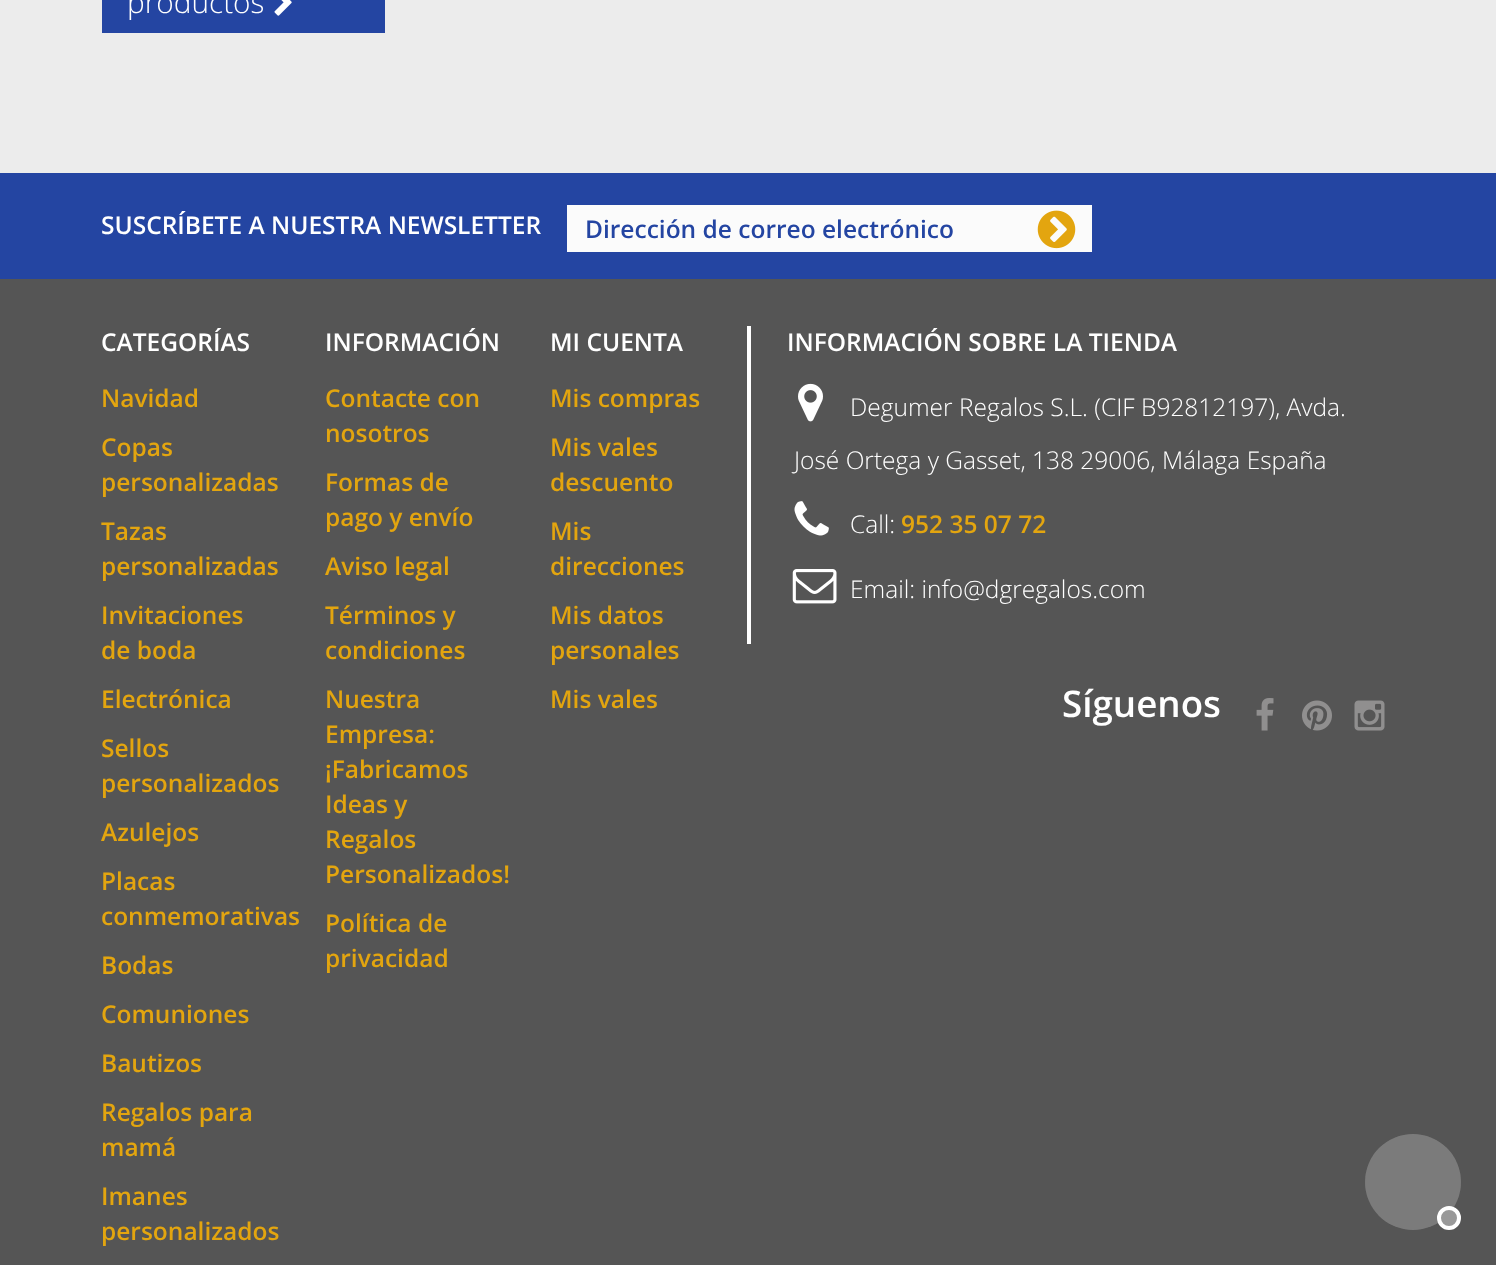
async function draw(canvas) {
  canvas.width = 1496
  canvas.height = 1265
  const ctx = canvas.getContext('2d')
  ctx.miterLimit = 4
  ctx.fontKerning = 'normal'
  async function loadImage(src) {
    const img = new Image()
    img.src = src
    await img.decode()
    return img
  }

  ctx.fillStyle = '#ececec'
  ctx.fillRect(0, 0, 1496, 1265)
  ctx.fillStyle = '#2445a2'
  ctx.fillRect(102, 0, 283, 33)
  ctx.font = '300 29.75px Open Sans'
  ctx.fillStyle = '#fff'
  ctx.fillText('productos', 127, 13)
  ctx.drawImage(await loadImage('image0.png'), 274, 0, 18, 16)
  ctx.fillStyle = '#555'
  ctx.fillRect(0, 279, 1496, 986)
  ctx.fillStyle = '#2445a2'
  ctx.fillRect(0, 173, 1496, 106)
  ctx.font = '600 24.5px Open Sans'
  ctx.fillStyle = '#fff'
  ctx.fillText('SUSCRÍBETE A NUESTRA NEWSLETTER', 101, 234)
  ctx.fillStyle = '#fbfbfb'
  ctx.fillRect(567, 205, 525, 47)
  ctx.fillStyle = '#2445a2'
  ctx.fillText('Dirección de correo electrónico', 585, 238)
  ctx.drawImage(await loadImage('image1.png'), 1037, 210, 39, 39)
  ctx.fillStyle = '#fff'
  ctx.fillText('CATEGORÍAS', 101, 351)
  ctx.fillStyle = '#e3a50f'
  ctx.fillText('Navidad', 101, 407)
  ctx.fillText('Copas', 101, 456)
  ctx.fillText('personalizadas', 101, 491)
  ctx.fillText('Tazas', 101, 540)
  ctx.fillText('personalizadas', 101, 575)
  ctx.fillText('Invitaciones', 101, 624)
  ctx.fillText('de boda', 101, 659)
  ctx.fillText('Electrónica', 101, 708)
  ctx.fillText('Sellos', 101, 757)
  ctx.fillText('personalizados', 101, 792)
  ctx.fillText('Azulejos', 101, 841)
  ctx.fillText('Placas', 101, 890)
  ctx.fillText('conmemorativas', 101, 925)
  ctx.fillText('Bodas', 101, 974)
  ctx.fillText('Comuniones', 101, 1023)
  ctx.fillText('Bautizos', 101, 1072)
  ctx.fillText('Regalos para', 101, 1121)
  ctx.fillText('mamá', 101, 1156)
  ctx.fillText('Imanes', 101, 1205)
  ctx.fillText('personalizados', 101, 1240)
  ctx.fillStyle = '#fff'
  ctx.fillText('INFORMACIÓN', 325, 351)
  ctx.fillStyle = '#e3a50f'
  ctx.fillText('Contacte con', 325, 407)
  ctx.fillText('nosotros', 325, 442)
  ctx.fillText('Formas de', 325, 491)
  ctx.fillText('pago y envío', 325, 526)
  ctx.fillText('Aviso legal', 325, 575)
  ctx.fillText('Términos y', 325, 624)
  ctx.fillText('condiciones', 325, 659)
  ctx.fillText('Nuestra', 325, 708)
  ctx.fillText('Empresa:', 325, 743)
  ctx.fillText('¡Fabricamos', 325, 778)
  ctx.fillText('Ideas y', 325, 813)
  ctx.fillText('Regalos', 325, 848)
  ctx.fillText('Personalizados!', 325, 883)
  ctx.fillText('Política de', 325, 932)
  ctx.fillText('privacidad', 325, 967)
  ctx.fillStyle = '#fff'
  ctx.fillText('MI CUENTA', 550, 351)
  ctx.fillStyle = '#e3a50f'
  ctx.fillText('Mis compras', 550, 407)
  ctx.fillText('Mis vales', 550, 456)
  ctx.fillText('descuento', 550, 491)
  ctx.fillText('Mis', 550, 540)
  ctx.fillText('direcciones', 550, 575)
  ctx.fillText('Mis datos', 550, 624)
  ctx.fillText('personales', 550, 659)
  ctx.fillText('Mis vales', 550, 708)
  ctx.fillStyle = '#fff'
  ctx.fillRect(747, 326, 4, 318)
  ctx.fillText('INFORMACIÓN SOBRE LA TIENDA', 787, 351)
  ctx.drawImage(await loadImage('image2.png'), 798, 383, 25, 39)
  ctx.font = '300 24.5px Open Sans'
  ctx.fillText('Degumer Regalos S.L. (CIF B92812197), Avda.', 850, 416)
  ctx.fillText('José Ortega y Gasset, 138 29006, Málaga España', 794, 469)
  ctx.drawImage(await loadImage('image3.png'), 794, 501, 35, 35)
  ctx.fillText('Call:', 850, 533)
  ctx.font = '600 24.5px Open Sans'
  ctx.fillStyle = '#e3a50f'
  ctx.fillText('952 35 07 72', 901, 533)
  ctx.drawImage(await loadImage('image4.png'), 792, 569, 45, 35)
  ctx.font = '300 24.5px Open Sans'
  ctx.fillStyle = '#fff'
  ctx.fillText('Email: info@dgregalos.com', 850, 598)
  ctx.font = '600 36.75px Open Sans'
  ctx.fillText('Síguenos', 1062, 717)
  ctx.drawImage(await loadImage('image5.png'), 1256, 698, 18, 33)
  ctx.drawImage(await loadImage('image6.png'), 1302, 700, 30, 31)
  ctx.drawImage(await loadImage('image7.png'), 1354, 700, 31, 31)
  ctx.fillStyle = '#666'
  ctx.beginPath()
  ctx.arc(1413, 1182, 48, 0, 2 * Math.PI)
  ctx.fill()
  ctx.fillStyle = '#99999940'
  ctx.beginPath()
  ctx.arc(1413, 1182, 48, 0, 2 * Math.PI)
  ctx.fill()
  ctx.beginPath()
  ctx.arc(1413, 1182, 48, 0, 2 * Math.PI)
  ctx.fill()
  ctx.fillStyle = '#999'
  ctx.beginPath()
  ctx.arc(1449, 1218, 10, 0, 2 * Math.PI)
  ctx.fill()
  ctx.strokeStyle = '#fff'
  ctx.lineWidth = 4
  ctx.stroke()
}

draw(document.querySelector('canvas'))
